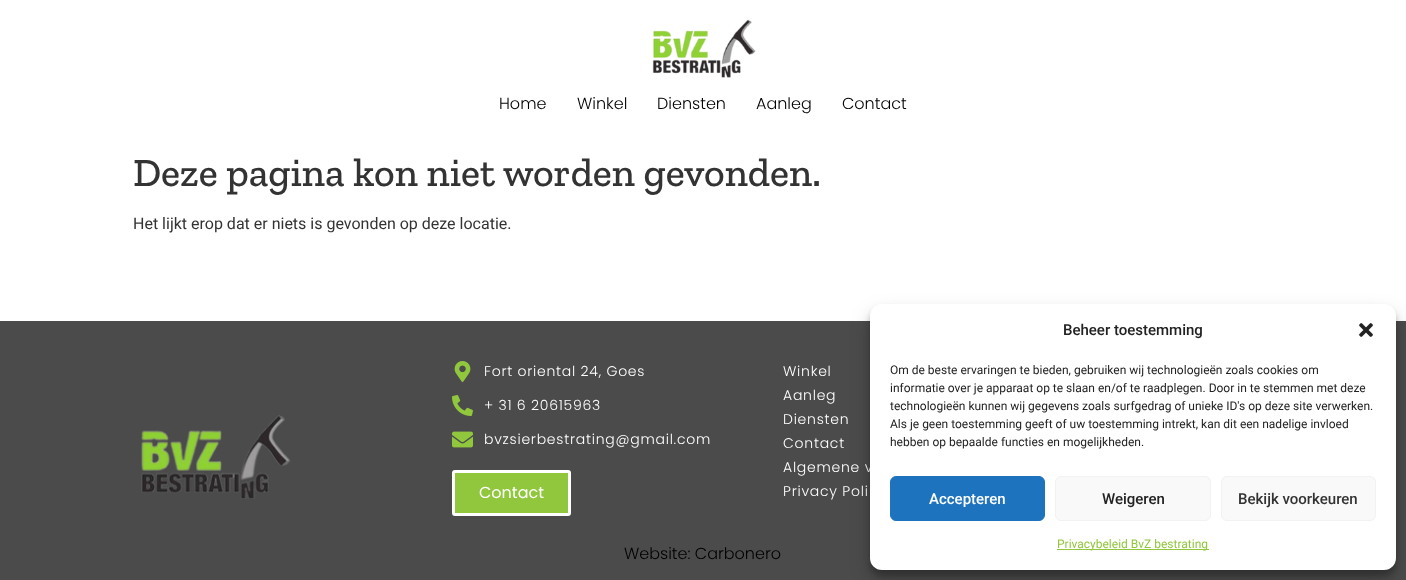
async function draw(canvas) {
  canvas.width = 1406
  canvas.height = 580
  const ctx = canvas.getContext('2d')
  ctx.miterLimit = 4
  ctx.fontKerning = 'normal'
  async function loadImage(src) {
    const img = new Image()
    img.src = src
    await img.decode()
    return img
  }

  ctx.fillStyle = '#fff'
  ctx.fillRect(0, 0, 1406, 580)
  ctx.drawImage(await loadImage('image0.png'), 652, 19, 104, 59)
  ctx.font = '300 16px Poppins'
  ctx.fillStyle = '#000'
  ctx.fillText('Home', 499, 109)
  ctx.fillText('Winkel', 577, 109)
  ctx.fillText('Diensten', 657, 109)
  ctx.fillText('Aanleg', 756, 109)
  ctx.fillText('Contact', 842, 109)
  ctx.font = '500 40px Zilla Slab'
  ctx.fillStyle = '#333'
  ctx.fillText('Deze pagina kon niet worden gevonden.', 133, 186)
  ctx.font = '16px Roboto'
  ctx.fillText('Het lijkt erop dat er niets is gevonden op deze locatie.', 133, 229)
  ctx.fillStyle = '#4b4b4b'
  ctx.fillRect(0, 321, 1406, 259)
  ctx.drawImage(await loadImage('image1.png'), 141, 415, 150, 84)
  ctx.drawImage(await loadImage('image2.png'), 454, 361, 17, 21)
  ctx.letterSpacing = '0.75px'
  ctx.font = '300 14px Poppins'
  ctx.fillStyle = '#fff'
  ctx.fillText('Fort oriental 24, Goes', 484, 376)
  ctx.drawImage(await loadImage('image3.png'), 452, 395, 21, 21)
  ctx.fillText('+ 31 6 20615963', 484, 410)
  ctx.drawImage(await loadImage('image4.png'), 452, 431, 21, 17)
  ctx.fillText('bvzsierbestrating@gmail.com', 484, 444)
  ctx.fillStyle = '#90c73d'
  ctx.beginPath()
  ctx.roundRect(453.5, 471.5, 116, 43, 1.5)
  ctx.fill()
  ctx.strokeStyle = '#fff'
  ctx.lineWidth = 3
  ctx.stroke()
  ctx.letterSpacing = '0px'
  ctx.font = '16px Poppins'
  ctx.fillStyle = '#fff'
  ctx.fillText('Contact', 479, 498)
  ctx.letterSpacing = '0.75px'
  ctx.font = '300 14px Poppins'
  ctx.fillText('Winkel', 783, 376)
  ctx.fillText('Aanleg', 783, 400)
  ctx.fillText('Diensten', 783, 424)
  ctx.fillText('Contact', 783, 448)
  ctx.fillText('Algemene v', 783, 472)
  ctx.fillText('Privacy Poli', 783, 496)
  ctx.letterSpacing = '0px'
  ctx.font = '300 16px Poppins'
  ctx.fillStyle = '#000'
  ctx.fillText('Website: Carbonero', 624, 559)
  ctx.fillStyle = '#0000003b'
  ctx.filter = 'blur(3px)'
  ctx.beginPath()
  ctx.roundRect(870, 310, 526, 266, 12)
  ctx.fill()
  ctx.filter = 'none'
  ctx.fillStyle = '#00000030'
  ctx.filter = 'blur(10px)'
  ctx.beginPath()
  ctx.roundRect(870, 314, 526, 266, 12)
  ctx.fill()
  ctx.filter = 'none'
  ctx.fillStyle = '#fff'
  ctx.beginPath()
  ctx.roundRect(870, 304, 526, 266, 12)
  ctx.fill()
  ctx.font = '500 15px Roboto'
  ctx.fillStyle = '#222'
  ctx.fillText('Beheer toestemming', 1063, 335)
  ctx.drawImage(await loadImage('image5.png'), 1359, 323, 14, 14)
  ctx.font = '12px Roboto'
  ctx.fillText('Om de beste ervaringen te bieden, gebruiken wij technologieën zoals cookies om', 890, 374)
  ctx.fillText('informatie over je apparaat op te slaan en/of te raadplegen. Door in te stemmen met deze', 890, 392)
  ctx.fillText('technologieën kunnen wij gegevens zoals surfgedrag of unieke ID\'s op deze site verwerken.', 890, 410)
  ctx.fillText('Als je geen toestemming geeft of uw toestemming intrekt, kan dit een nadelige invloed', 890, 428)
  ctx.fillText('hebben op bepaalde functies en mogelijkheden.', 890, 446)
  ctx.fillStyle = '#1e73be'
  ctx.beginPath()
  ctx.roundRect(890.5, 476.5, 154, 44, 5.5)
  ctx.fill()
  ctx.strokeStyle = '#1e73be'
  ctx.lineWidth = 1
  ctx.stroke()
  ctx.font = '500 15px Roboto'
  ctx.fillStyle = '#fff'
  ctx.fillText('Accepteren', 929, 504)
  ctx.fillStyle = '#f9f9f9'
  ctx.beginPath()
  ctx.roundRect(1055.5, 476.5, 155, 44, 5.5)
  ctx.fill()
  ctx.strokeStyle = '#f2f2f2'
  ctx.stroke()
  ctx.fillStyle = '#222'
  ctx.fillText('Weigeren', 1102, 504)
  ctx.fillStyle = '#f9f9f9'
  ctx.beginPath()
  ctx.roundRect(1221.5, 476.5, 154, 44, 5.5)
  ctx.fill()
  ctx.stroke()
  ctx.fillStyle = '#333'
  ctx.fillText('Bekijk voorkeuren', 1238, 504)
  ctx.fillStyle = '#90c73d'
  ctx.fillRect(1057, 549, 152, 1)
  ctx.font = '12px Roboto'
  ctx.fillText('Privacybeleid BvZ bestrating', 1057, 548)
}

draw(document.querySelector('canvas'))
